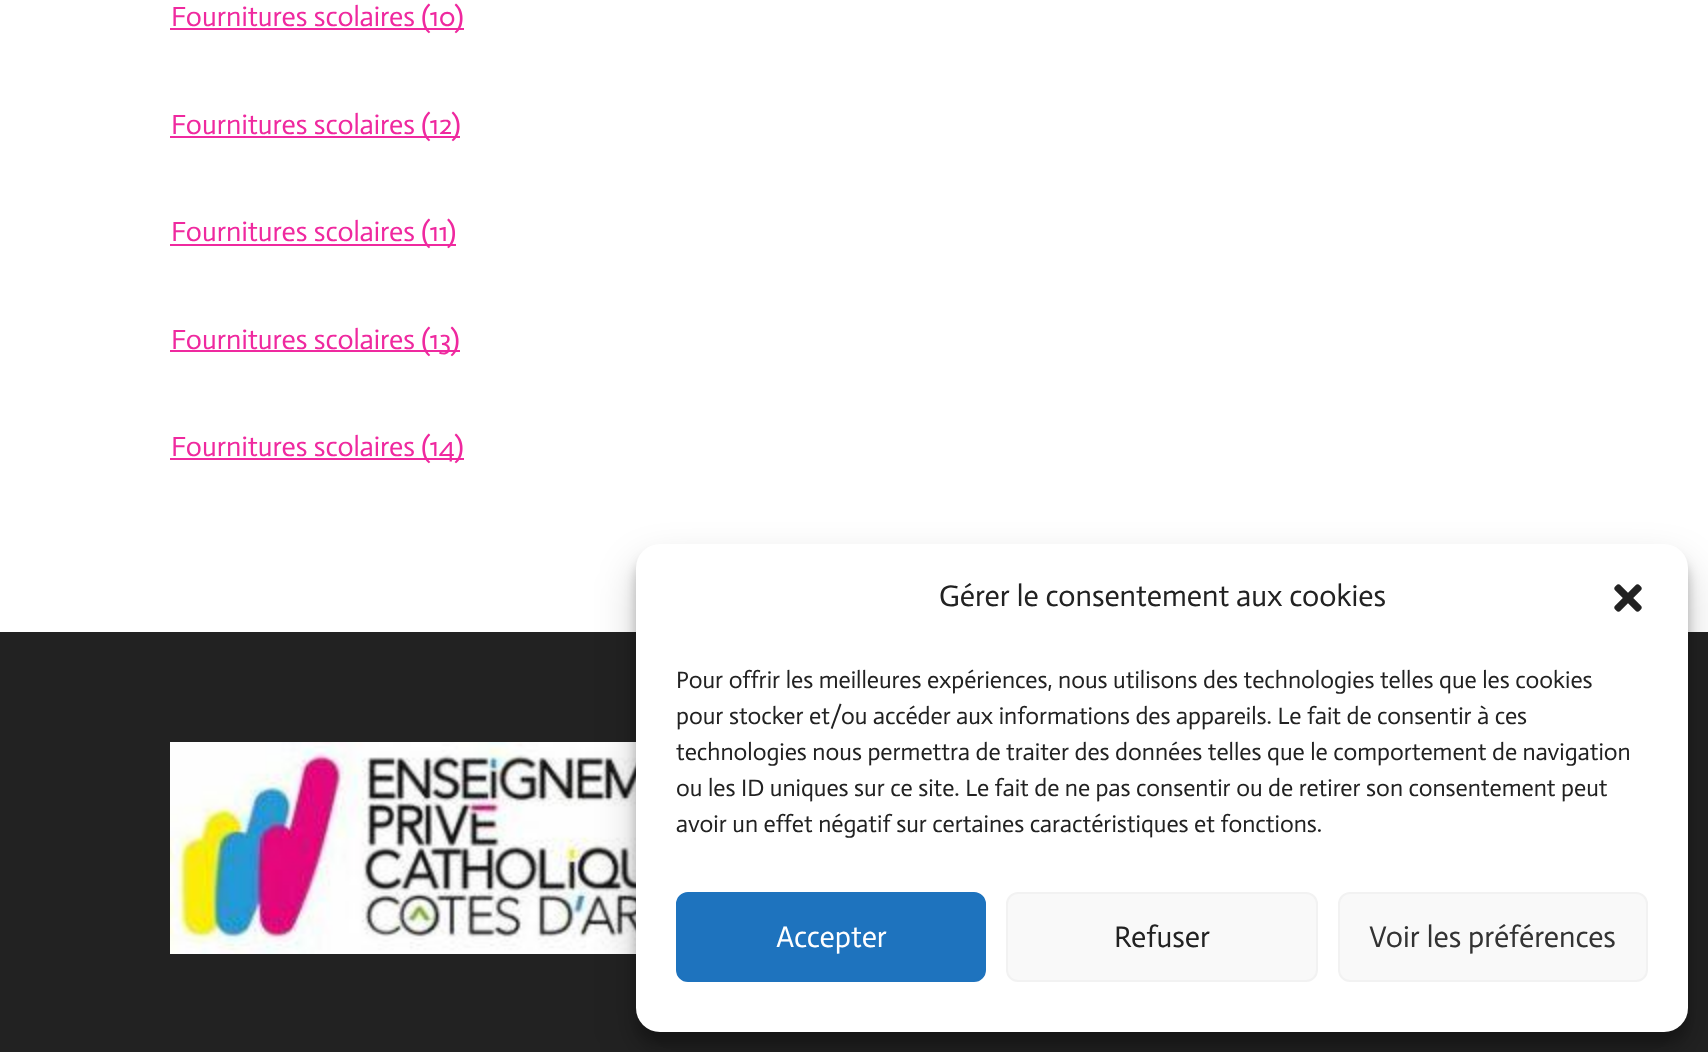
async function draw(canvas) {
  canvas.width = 1708
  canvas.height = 1052
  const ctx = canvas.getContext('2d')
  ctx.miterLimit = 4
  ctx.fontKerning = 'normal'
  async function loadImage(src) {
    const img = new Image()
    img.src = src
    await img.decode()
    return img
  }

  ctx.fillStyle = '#fff'
  ctx.fillRect(0, 0, 1708, 1052)
  ctx.fillStyle = '#ef299f'
  ctx.fillRect(170, 28, 294, 2)
  ctx.font = '28px Actor'
  ctx.fillText('Fournitures scolaires (10)', 171, 26)
  ctx.fillRect(170, 136, 290, 2)
  ctx.fillText('Fournitures scolaires (12)', 171, 134)
  ctx.fillRect(170, 244, 286, 2)
  ctx.fillText('Fournitures scolaires (11)', 171, 241)
  ctx.fillRect(170, 350, 290, 2)
  ctx.fillText('Fournitures scolaires (13)', 171, 349)
  ctx.fillRect(170, 458, 294, 2)
  ctx.fillText('Fournitures scolaires (14)', 171, 456)
  ctx.fillStyle = '#222'
  ctx.fillRect(0, 632, 1708, 420)
  ctx.drawImage(await loadImage('image0.png'), 170, 742, 466, 212)
  ctx.fillStyle = '#0000003b'
  ctx.filter = 'blur(6px)'
  ctx.beginPath()
  ctx.roundRect(636, 556, 1052, 488, 24)
  ctx.fill()
  ctx.filter = 'none'
  ctx.fillStyle = '#00000030'
  ctx.filter = 'blur(20px)'
  ctx.beginPath()
  ctx.roundRect(636, 564, 1052, 488, 24)
  ctx.fill()
  ctx.filter = 'none'
  ctx.fillStyle = '#fff'
  ctx.beginPath()
  ctx.roundRect(636, 544, 1052, 488, 24)
  ctx.fill()
  ctx.font = '30px Actor'
  ctx.fillStyle = '#222'
  ctx.fillText('Gérer le consentement aux cookies', 939, 606)
  ctx.drawImage(await loadImage('image1.png'), 1614, 584, 28, 28)
  ctx.font = '24px Actor'
  ctx.fillText('Pour offrir les meilleures expériences, nous utilisons des technologies telles que les cookies', 676, 688)
  ctx.fillText('pour stocker et/ou accéder aux informations des appareils. Le fait de consentir à ces', 676, 724)
  ctx.fillText('technologies nous permettra de traiter des données telles que le comportement de navigation', 676, 760)
  ctx.fillText('ou les ID uniques sur ce site. Le fait de ne pas consentir ou de retirer son consentement peut', 676, 796)
  ctx.fillText('avoir un effet négatif sur certaines caractéristiques et fonctions.', 676, 832)
  ctx.fillStyle = '#1e73be'
  ctx.beginPath()
  ctx.roundRect(677, 893, 308, 88, 11)
  ctx.fill()
  ctx.strokeStyle = '#1e73be'
  ctx.lineWidth = 2
  ctx.stroke()
  ctx.font = '30px Actor'
  ctx.fillStyle = '#fff'
  ctx.fillText('Accepter', 776, 947)
  ctx.fillStyle = '#f9f9f9'
  ctx.beginPath()
  ctx.roundRect(1007, 893, 310, 88, 11)
  ctx.fill()
  ctx.strokeStyle = '#f2f2f2'
  ctx.stroke()
  ctx.fillStyle = '#222'
  ctx.fillText('Refuser', 1114, 947)
  ctx.fillStyle = '#f9f9f9'
  ctx.beginPath()
  ctx.roundRect(1339, 893, 308, 88, 11)
  ctx.fill()
  ctx.stroke()
  ctx.fillStyle = '#333'
  ctx.fillText('Voir les préférences', 1369, 947)
}

draw(document.querySelector('canvas'))
